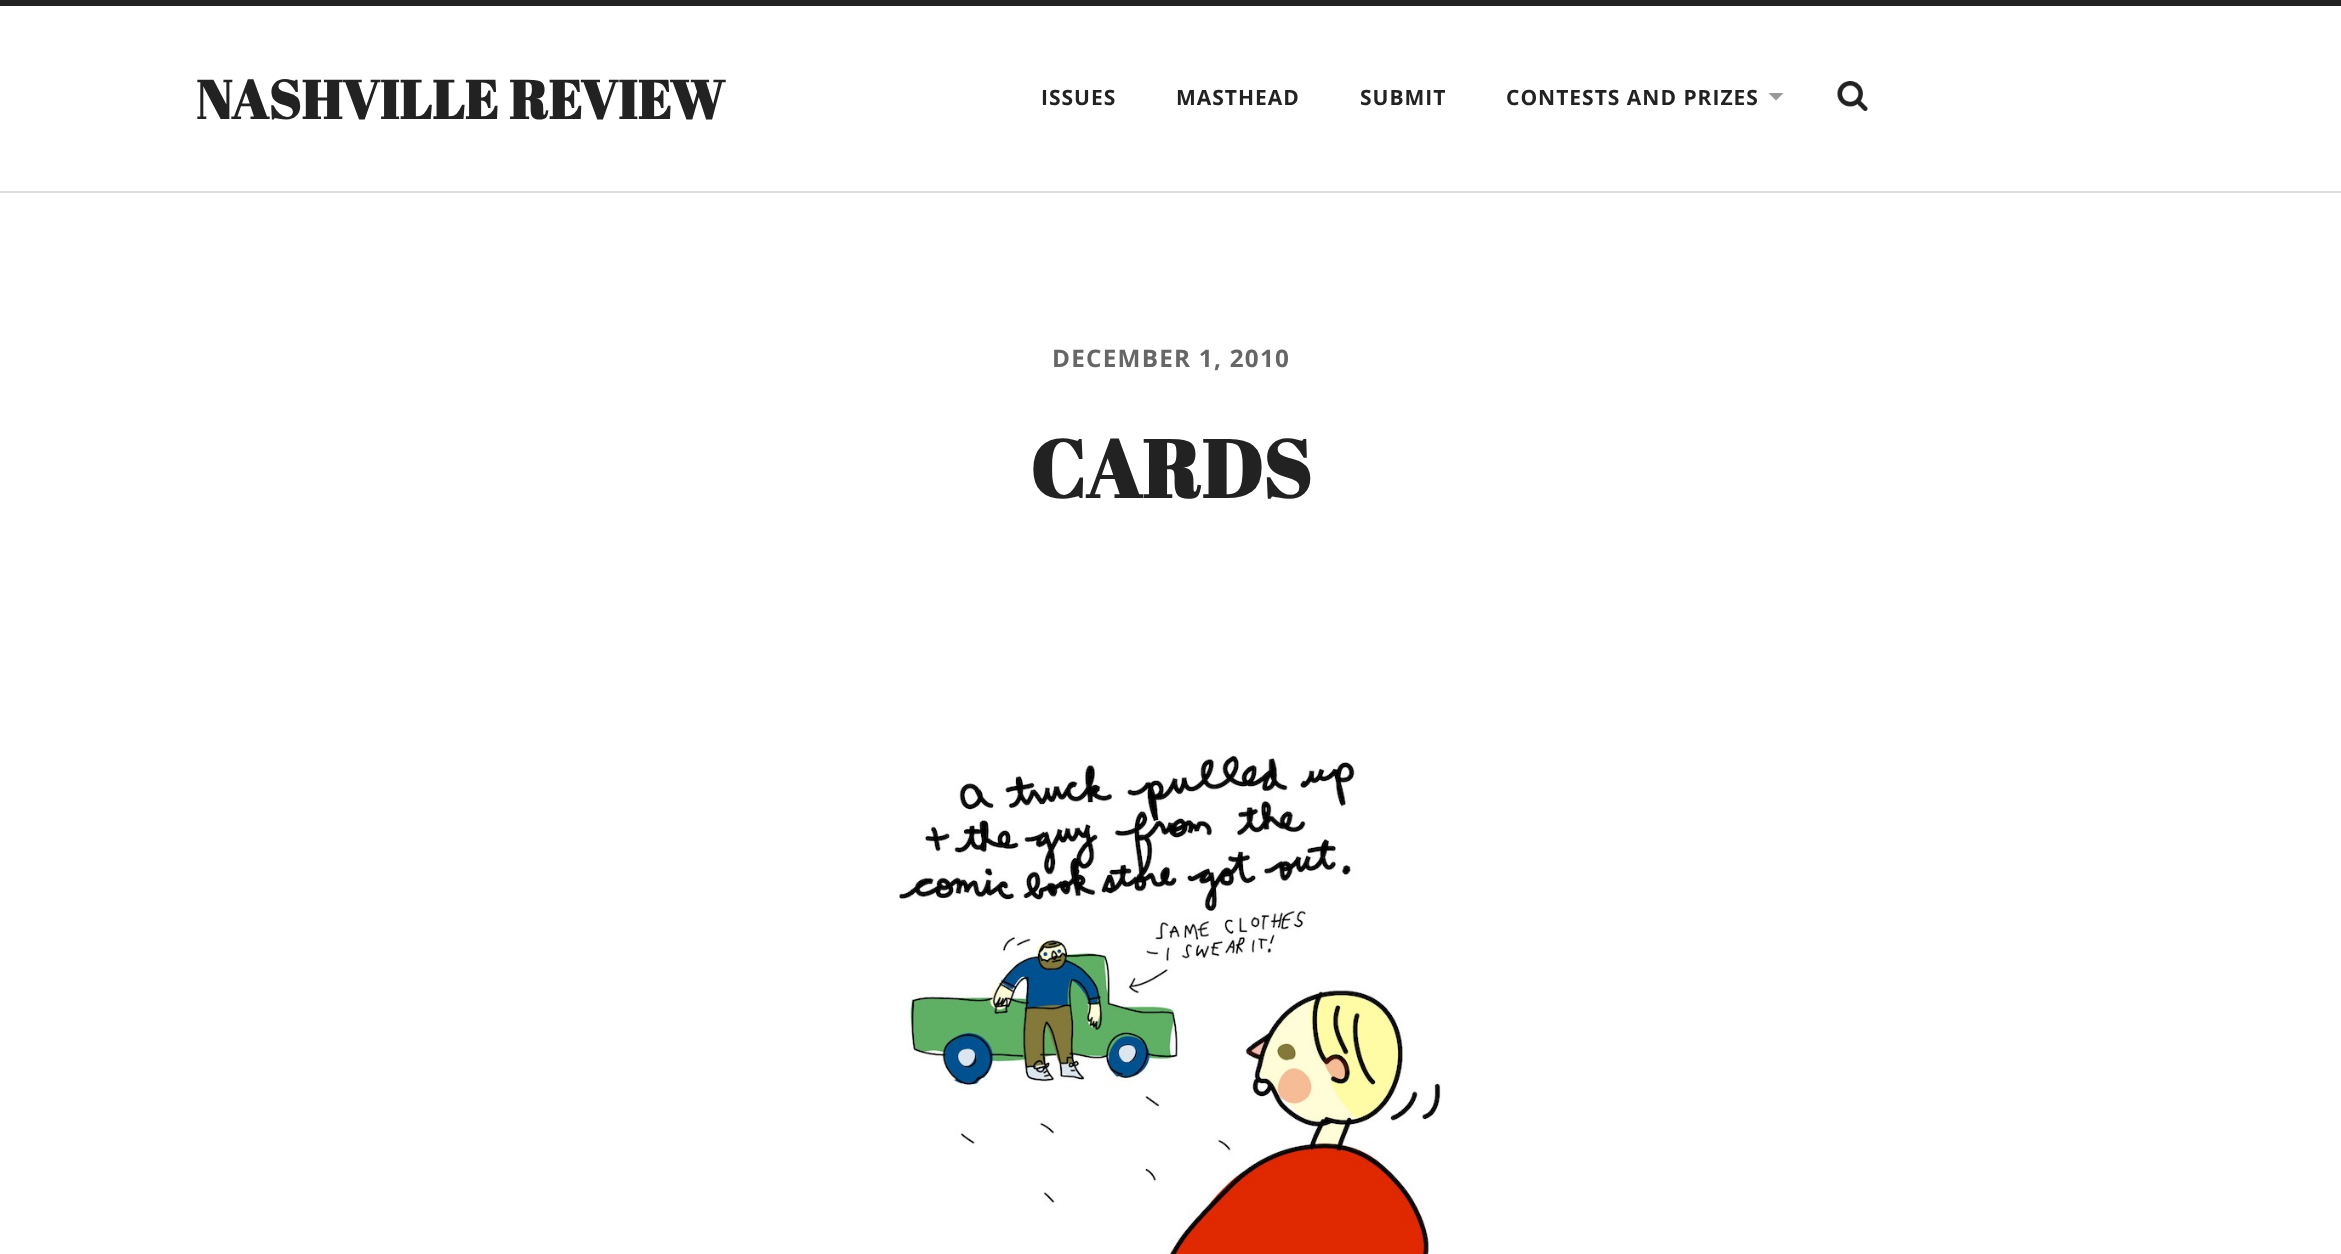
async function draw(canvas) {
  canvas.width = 2341
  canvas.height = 1254
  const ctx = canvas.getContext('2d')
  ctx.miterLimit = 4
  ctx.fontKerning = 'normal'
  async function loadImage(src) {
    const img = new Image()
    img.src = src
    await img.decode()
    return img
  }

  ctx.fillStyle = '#fff'
  ctx.fillRect(0, 0, 2341, 1254)
  ctx.fillStyle = '#222'
  ctx.fillRect(0, 0, 2341, 6)
  ctx.fillStyle = '#ddd'
  ctx.fillRect(0, 191, 2341, 2)
  ctx.letterSpacing = '0.5px'
  ctx.font = 'bold 54px Abril Fatface'
  ctx.fillStyle = '#222'
  ctx.fillText('NASHVILLE REVIEW', 196, 119)
  ctx.letterSpacing = '1px'
  ctx.font = 'bold 21px Open Sans'
  ctx.fillText('ISSUES', 1041, 105)
  ctx.fillText('MASTHEAD', 1176, 105)
  ctx.fillText('SUBMIT', 1360, 105)
  ctx.fillText('CONTESTS AND PRIZES', 1506, 105)
  ctx.fillStyle = '#999'
  ctx.beginPath()
  ctx.moveTo(1768.5, 93)
  ctx.lineTo(1783.5, 93)
  ctx.lineTo(1776, 100.5)
  ctx.closePath()
  ctx.fill()
  ctx.drawImage(await loadImage('image0.png'), 1837, 81, 31, 30)
  ctx.letterSpacing = '1.25px'
  ctx.font = 'bold 24.25px Open Sans'
  ctx.fillStyle = '#666'
  ctx.fillText('DECEMBER 1, 2010', 1052, 367)
  ctx.letterSpacing = '1px'
  ctx.font = 'bold 81px Abril Fatface'
  ctx.fillStyle = '#222'
  ctx.fillText('CARDS', 1030, 498)
  ctx.drawImage(await loadImage('image1.png'), 899, 755, 542, 499)
}

draw(document.querySelector('canvas'))
